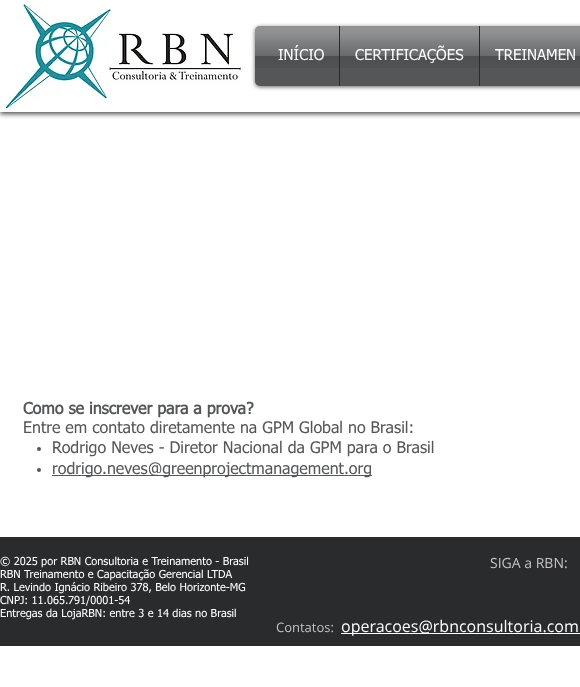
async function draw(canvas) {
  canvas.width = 580
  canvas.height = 687
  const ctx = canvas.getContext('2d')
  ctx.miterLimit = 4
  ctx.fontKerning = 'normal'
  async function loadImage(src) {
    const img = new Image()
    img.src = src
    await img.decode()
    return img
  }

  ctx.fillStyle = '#fff'
  ctx.fillRect(0, 0, 580, 687)
  ctx.save()
  ctx.beginPath()
  ctx.rect(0, 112, 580, 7)
  ctx.clip()
  ctx.fillStyle = '#000000b3'
  ctx.filter = 'blur(2.5px)'
  ctx.beginPath()
  ctx.rect(0, 2, 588, 112)
  ctx.fill()
  ctx.filter = 'none'
  ctx.restore()
  ctx.drawImage(await loadImage('image0.png'), 0, 3, 244, 109)
  ctx.fillStyle = '#00000099'
  ctx.filter = 'blur(2px)'
  ctx.beginPath()
  ctx.roundRect(255, 27, 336, 60, 5)
  ctx.fill()
  ctx.filter = 'none'
  ctx.fillStyle = '#545658'
  ctx.beginPath()
  ctx.roundRect(255, 26, 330, 60, 5)
  ctx.fill()
  ctx.drawImage(await loadImage('image1.png'), 255, 26, 8, 42)
  ctx.font = '15px tahoma'
  ctx.fillStyle = '#fff'
  ctx.fillText('INÍCIO', 278, 60)
  ctx.drawImage(await loadImage('image2.png'), 263, 26, 76, 42)
  ctx.fillStyle = '#2a2b2c'
  ctx.fillRect(339, 26, 1, 60)
  ctx.fillStyle = '#fff'
  ctx.fillText('CERTIFICAÇÕES', 355, 60)
  ctx.drawImage(await loadImage('image3.png'), 340, 26, 139, 42)
  ctx.fillStyle = '#2a2b2c'
  ctx.fillRect(479, 26, 1, 60)
  ctx.fillStyle = '#fff'
  ctx.fillText('TREINAMEN', 495, 60)
  ctx.drawImage(await loadImage('image4.png'), 480, 26, 100, 42)
  ctx.font = 'bold 16px tahoma'
  ctx.fillStyle = '#545658'
  ctx.fillText('Como se inscrever para a prova?', 23, 414)
  ctx.font = '16px tahoma'
  ctx.fillText('Entre em contato diretamente na GPM Global no Brasil:', 23, 433)
  ctx.beginPath()
  ctx.arc(39, 449, 2, 0, 2 * Math.PI)
  ctx.fill()
  ctx.fillText('Rodrigo Neves - Diretor Nacional da GPM para o Brasil', 52, 453)
  ctx.beginPath()
  ctx.arc(39, 470, 2, 0, 2 * Math.PI)
  ctx.fill()
  ctx.fillRect(52, 475, 320, 1)
  ctx.fillText('rodrigo.neves@greenprojectmanagement.org', 52, 474)
  ctx.fillStyle = '#2a2b2c'
  ctx.fillRect(0, 537, 580, 109)
  ctx.font = '11px tahoma'
  ctx.fillStyle = '#fff'
  ctx.fillText('© 2025 por RBN Consultoria e Treinamento - Brasil', 0, 565)
  ctx.fillText('RBN Treinamento e Capacitação Gerencial LTDA', 0, 578)
  ctx.fillText('R. Levindo Ignácio Ribeiro 378, Belo Horizonte-MG', 0, 591)
  ctx.fillText('CNPJ: 11.065.791/0001-54', 0, 604)
  ctx.fillText('Entregas da LojaRBN: entre 3 e 14 dias no Brasil', 0, 617)
  ctx.font = '14px Open Sans'
  ctx.fillStyle = '#c5c3c3'
  ctx.fillText('SIGA a RBN:', 490, 568)
  ctx.font = '13px Open Sans'
  ctx.fillText('Contatos:', 276, 632)
  ctx.fillStyle = '#fff'
  ctx.fillRect(341, 633, 239, 1)
  ctx.font = '16px Open Sans'
  ctx.fillText('operacoes@rbnconsultoria.com', 341, 632)
}

draw(document.querySelector('canvas'))
